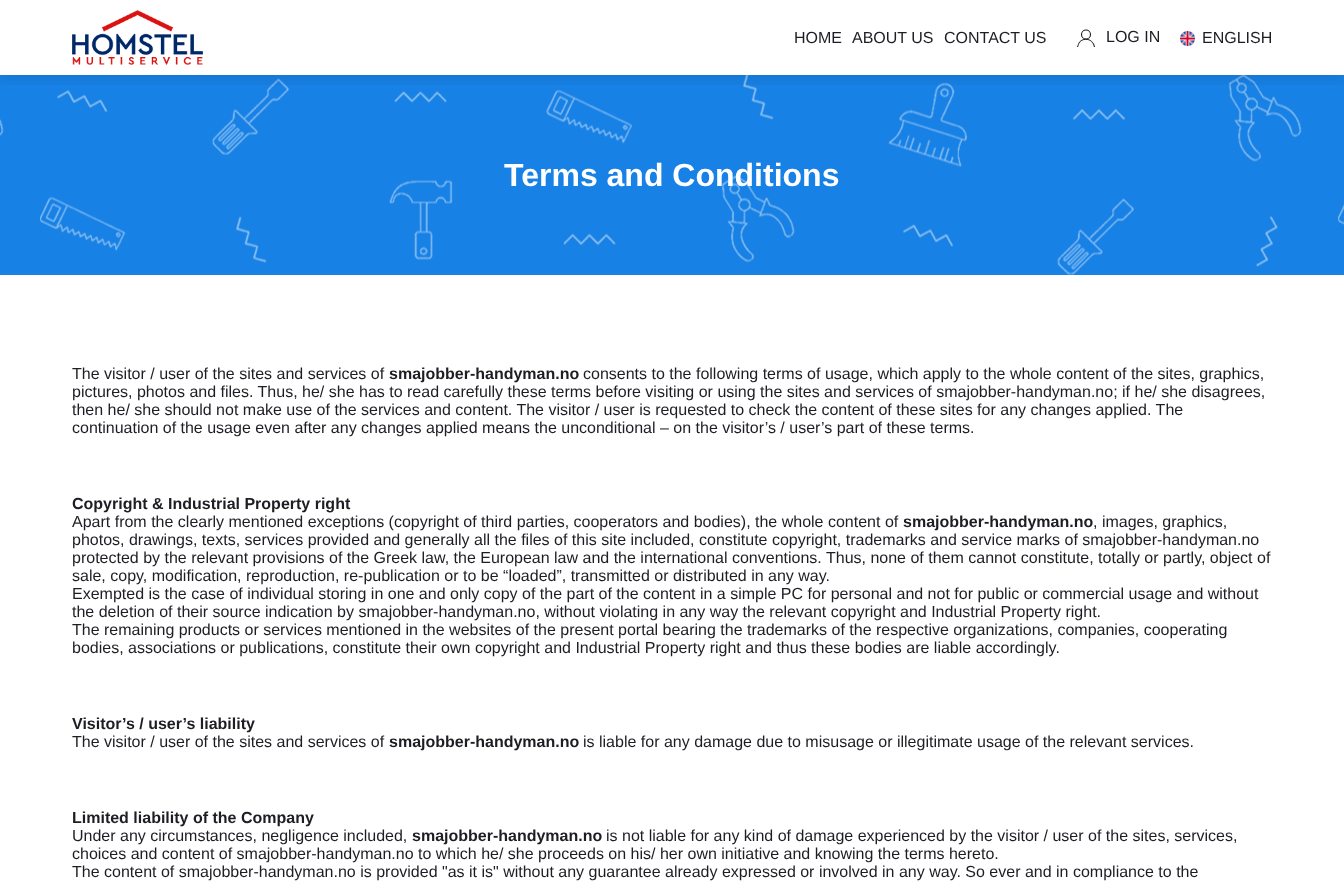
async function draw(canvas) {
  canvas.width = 1344
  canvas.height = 881
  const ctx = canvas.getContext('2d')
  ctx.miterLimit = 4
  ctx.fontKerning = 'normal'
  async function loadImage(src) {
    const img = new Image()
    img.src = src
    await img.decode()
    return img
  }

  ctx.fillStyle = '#fff'
  ctx.fillRect(0, 0, 1344, 881)
  ctx.fillStyle = '#1781e5'
  ctx.fillRect(0, 75, 1344, 200)
  ctx.drawImage(await loadImage('image2.png'), 0, 75, 1344, 200)
  ctx.save()
  ctx.beginPath()
  ctx.rect(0, 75, 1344, 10)
  ctx.clip()
  ctx.fillStyle = '#00000014'
  ctx.filter = 'blur(7.5px)'
  ctx.beginPath()
  ctx.rect(0, 5, 1344, 75)
  ctx.fill()
  ctx.filter = 'none'
  ctx.restore()
  ctx.drawImage(await loadImage('image0.png'), 72, 10, 131, 55)
  ctx.font = '16px Liberation Sans'
  ctx.fillStyle = '#1e1d24'
  ctx.fillText('HOME', 794, 43)
  ctx.fillText('ABOUT US', 852, 43)
  ctx.fillText('CONTACT US', 944, 43)
  ctx.beginPath()
  ctx.arc(1086, 34.5, 4.5, 0, 2 * Math.PI)
  ctx.strokeStyle = '#1e1d24'
  ctx.lineWidth = 1.1
  ctx.stroke()
  ctx.beginPath()
  ctx.moveTo(1077.5, 47)
  ctx.bezierCurveTo(1079.5, 36.5, 1092.5, 37, 1094.5, 47)
  ctx.stroke()
  ctx.fillText('LOG IN', 1106, 42)
  ctx.drawImage(await loadImage('image1.png'), 1180, 31, 15, 15)
  ctx.fillText('ENGLISH', 1202, 43)
  ctx.font = 'bold 32px Liberation Sans'
  ctx.fillStyle = '#fff'
  ctx.fillText('Terms and Conditions', 504, 186)
  ctx.font = '16px Liberation Sans'
  ctx.fillStyle = '#1e1d24'
  ctx.fillText('The visitor / user of the sites and services of', 72, 379)
  ctx.font = 'bold 16px Liberation Sans'
  ctx.fillText('smajobber-handyman.no', 389, 379)
  ctx.font = '16px Liberation Sans'
  ctx.fillText('consents to the following terms of usage, which apply to the whole content of the sites, graphics,', 583, 379)
  ctx.fillText('pictures, photos and files. Thus, he/ she has to read carefully these terms before visiting or using the sites and services of smajobber-handyman.no; if he/ she disagrees,', 72, 397)
  ctx.fillText('then he/ she should not make use of the services and content. The visitor / user is requested to check the content of these sites for any changes applied. The', 72, 415)
  ctx.fillText('continuation of the usage even after any changes applied means the unconditional – on the visitor’s / user’s part of these terms.', 72, 433)
  ctx.font = 'bold 16px Liberation Sans'
  ctx.fillText('Copyright & Industrial Property right', 72, 509)
  ctx.font = '16px Liberation Sans'
  ctx.fillText('Apart from the clearly mentioned exceptions (copyright of third parties, cooperators and bodies), the whole content of', 72, 527)
  ctx.font = 'bold 16px Liberation Sans'
  ctx.fillText('smajobber-handyman.no', 903, 527)
  ctx.font = '16px Liberation Sans'
  ctx.fillText(', images, graphics,', 1093, 527)
  ctx.fillText('photos, drawings, texts, services provided and generally all the files of this site included, constitute copyright, trademarks and service marks of smajobber-handyman.no', 72, 545)
  ctx.fillText('protected by the relevant provisions of the Greek law, the European law and the international conventions. Thus, none of them cannot constitute, totally or partly, object of', 72, 563)
  ctx.fillText('sale, copy, modification, reproduction, re-publication or to be “loaded”, transmitted or distributed in any way.', 72, 581)
  ctx.fillText('Exempted is the case of individual storing in one and only copy of the part of the content in a simple PC for personal and not for public or commercial usage and without', 72, 599)
  ctx.fillText('the deletion of their source indication by smajobber-handyman.no, without violating in any way the relevant copyright and Industrial Property right.', 72, 617)
  ctx.fillText('The remaining products or services mentioned in the websites of the present portal bearing the trademarks of the respective organizations, companies, cooperating', 72, 635)
  ctx.fillText('bodies, associations or publications, constitute their own copyright and Industrial Property right and thus these bodies are liable accordingly.', 72, 653)
  ctx.font = 'bold 16px Liberation Sans'
  ctx.fillText('Visitor’s / user’s liability', 72, 729)
  ctx.font = '16px Liberation Sans'
  ctx.fillText('The visitor / user of the sites and services of', 72, 747)
  ctx.font = 'bold 16px Liberation Sans'
  ctx.fillText('smajobber-handyman.no', 389, 747)
  ctx.font = '16px Liberation Sans'
  ctx.fillText('is liable for any damage due to misusage or illegitimate usage of the relevant services.', 583, 747)
  ctx.font = 'bold 16px Liberation Sans'
  ctx.fillText('Limited liability of the Company', 72, 823)
  ctx.font = '16px Liberation Sans'
  ctx.fillText('Under any circumstances, negligence included,', 72, 841)
  ctx.font = 'bold 16px Liberation Sans'
  ctx.fillText('smajobber-handyman.no', 412, 841)
  ctx.font = '16px Liberation Sans'
  ctx.fillText('is not liable for any kind of damage experienced by the visitor / user of the sites, services,', 606, 841)
  ctx.fillText('choices and content of smajobber-handyman.no to which he/ she proceeds on his/ her own initiative and knowing the terms hereto.', 72, 859)
  ctx.fillText('The content of smajobber-handyman.no is provided "as it is" without any guarantee already expressed or involved in any way. So ever and in compliance to the', 72, 877)
}

draw(document.querySelector('canvas'))
